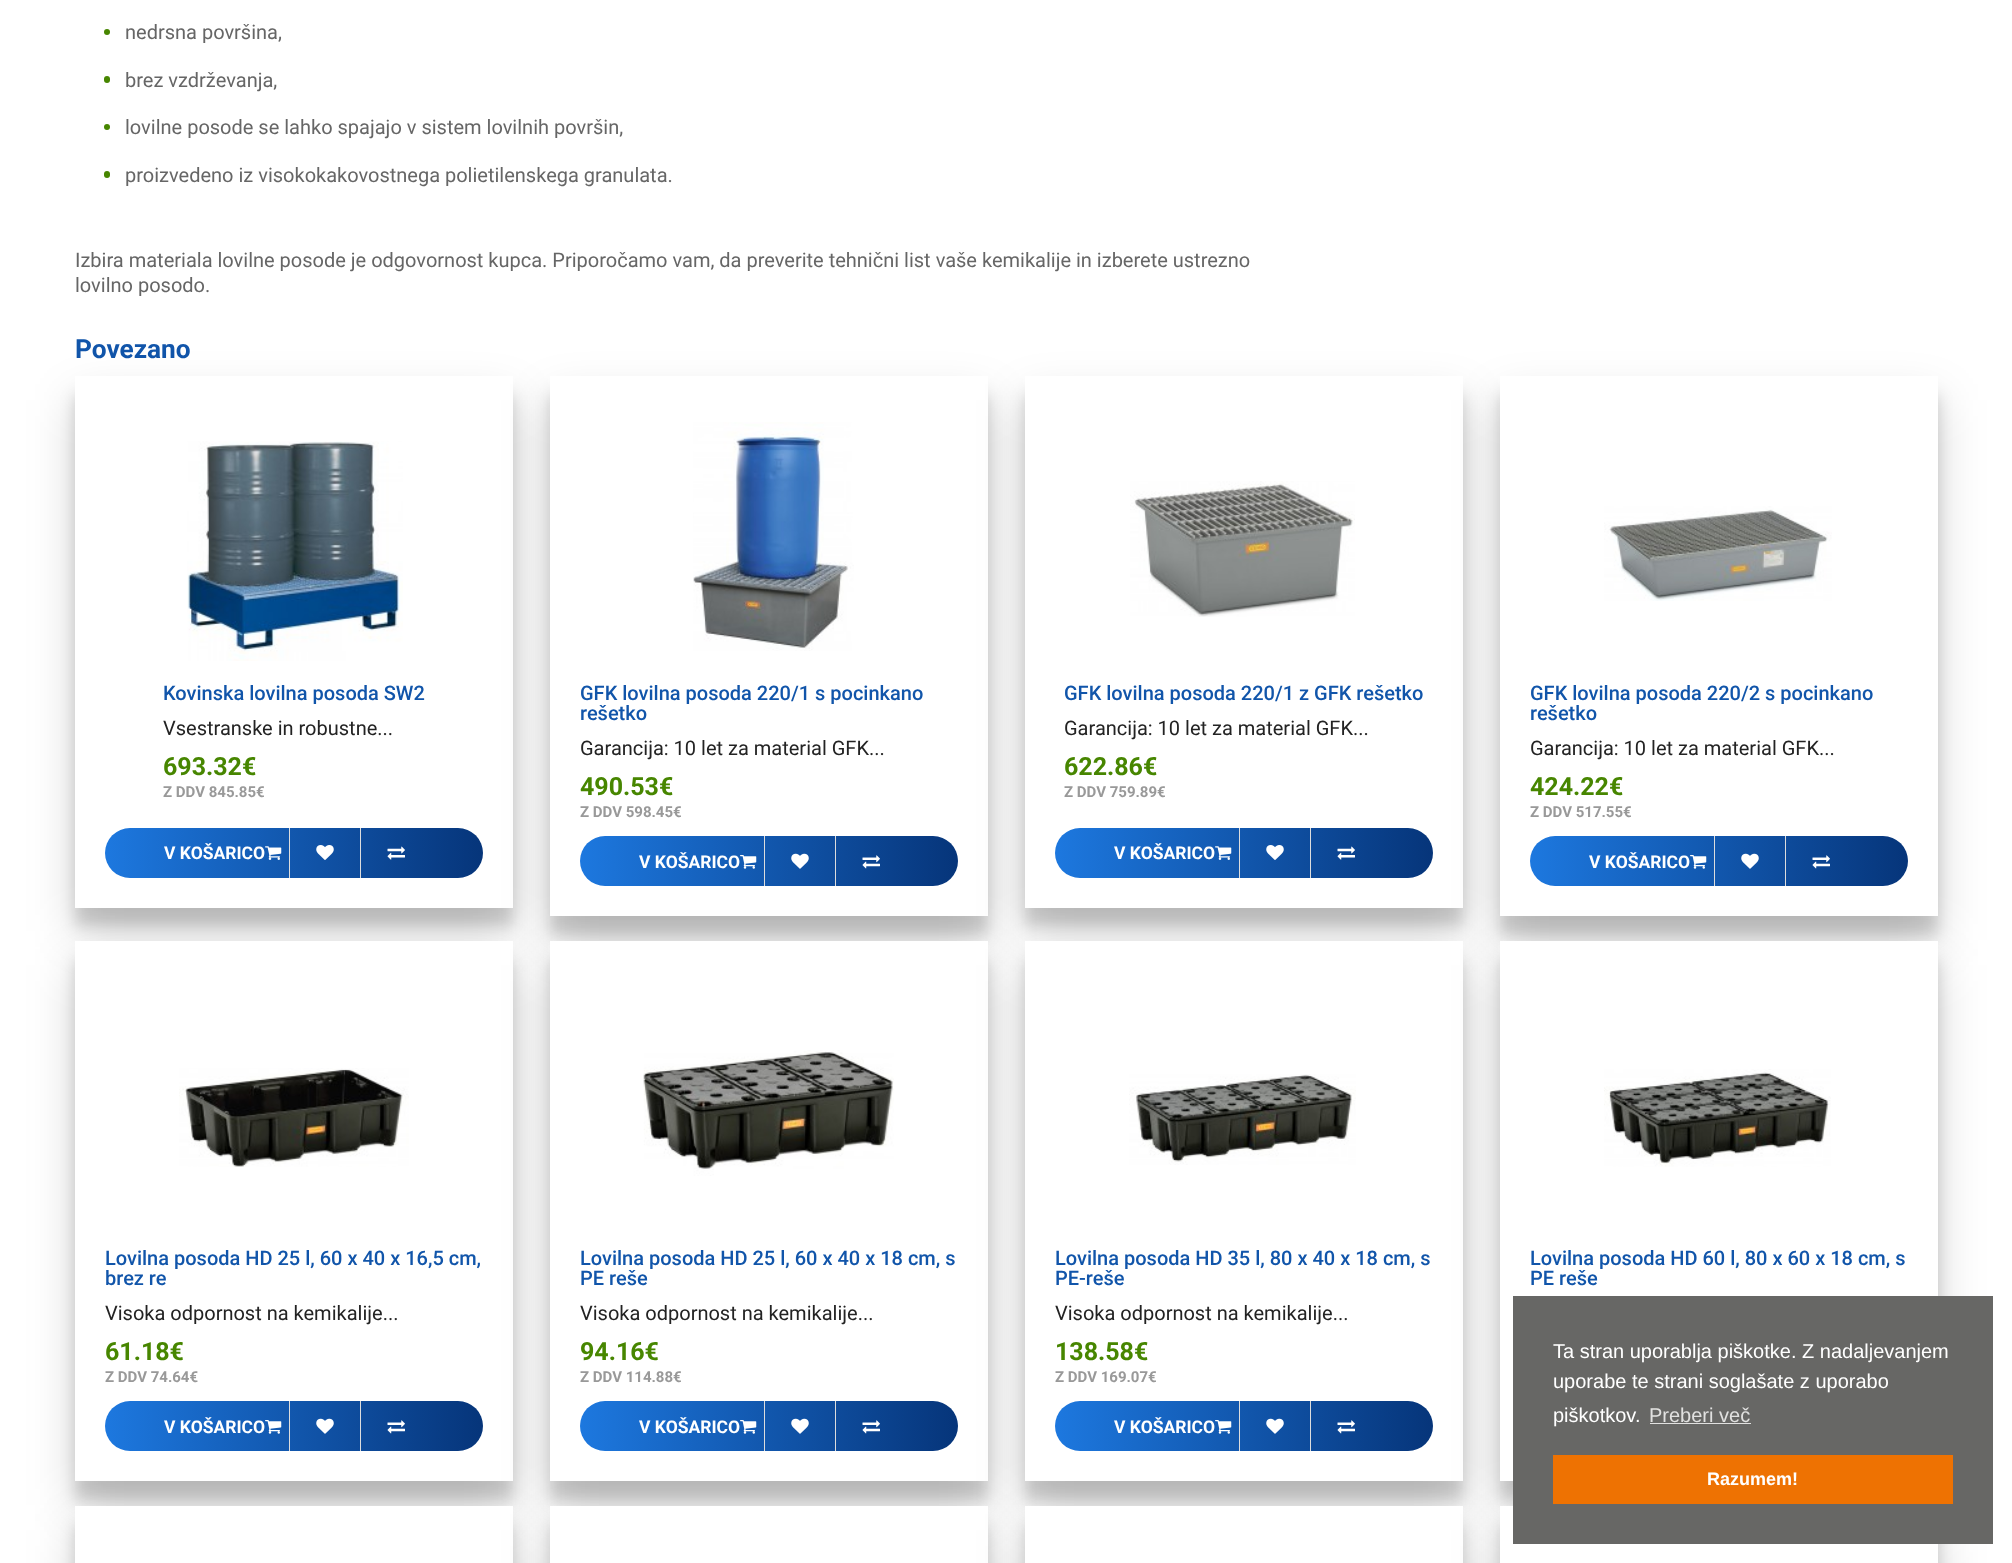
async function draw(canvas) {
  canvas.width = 2012
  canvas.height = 1563
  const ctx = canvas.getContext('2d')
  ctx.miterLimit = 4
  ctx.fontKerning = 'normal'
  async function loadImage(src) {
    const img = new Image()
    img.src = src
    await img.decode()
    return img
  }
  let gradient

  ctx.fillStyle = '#fff'
  ctx.fillRect(0, 0, 2012, 1563)
  ctx.fillStyle = '#478600'
  ctx.beginPath()
  ctx.arc(107, 32, 3, 0, 2 * Math.PI)
  ctx.fill()
  ctx.font = '20px Roboto'
  ctx.fillStyle = '#666'
  ctx.fillText('nedrsna površina,', 125, 39)
  ctx.fillStyle = '#478600'
  ctx.beginPath()
  ctx.roundRect(104, 76, 6, 7, 3)
  ctx.fill()
  ctx.fillStyle = '#666'
  ctx.fillText('brez vzdrževanja,', 125, 87)
  ctx.fillStyle = '#478600'
  ctx.beginPath()
  ctx.arc(107, 127, 3, 0, 2 * Math.PI)
  ctx.fill()
  ctx.fillStyle = '#666'
  ctx.fillText('lovilne posode se lahko spajajo v sistem lovilnih površin,', 125, 134)
  ctx.fillStyle = '#478600'
  ctx.beginPath()
  ctx.roundRect(104, 171, 6, 7, 3)
  ctx.fill()
  ctx.fillStyle = '#666'
  ctx.fillText('proizvedeno iz visokokakovostnega polietilenskega granulata.', 125, 182)
  ctx.fillText('Izbira materiala lovilne posode je odgovornost kupca. Priporočamo vam, da preverite tehnični list vaše kemikalije in izberete ustrezno', 75, 267)
  ctx.fillText('lovilno posodo.', 75, 292)
  ctx.font = 'bold 26.25px Roboto'
  ctx.fillStyle = '#15a'
  ctx.fillText('Povezano', 75, 358)
  ctx.fillStyle = '#00000029'
  ctx.filter = 'blur(7.5px)'
  ctx.beginPath()
  ctx.rect(75, 395, 438, 531)
  ctx.fill()
  ctx.filter = 'none'
  ctx.filter = 'blur(24px)'
  ctx.beginPath()
  ctx.rect(75, 400, 438, 531)
  ctx.fill()
  ctx.filter = 'none'
  ctx.fillStyle = '#fff'
  ctx.fillRect(75, 376, 438, 532)
  ctx.drawImage(await loadImage('image0.png'), 187, 441, 216, 220)
  ctx.font = '500 20px Roboto'
  ctx.fillStyle = '#15a'
  ctx.fillText('Kovinska lovilna posoda SW2', 163, 700)
  ctx.font = '20px Roboto'
  ctx.fillStyle = '#232323'
  ctx.fillText('Vsestranske in robustne...', 163, 735)
  ctx.font = 'bold 25px Roboto'
  ctx.fillStyle = '#478600'
  ctx.fillText('693.32€', 163, 775)
  ctx.font = 'bold 15px Roboto'
  ctx.fillStyle = '#999'
  ctx.fillText('Z DDV 845.85€', 163, 797)
  gradient = ctx.createLinearGradient(105, 853, 483, 853)
  gradient.addColorStop(0, '#1d78df')
  gradient.addColorStop(1, '#06357a')
  ctx.fillStyle = gradient
  ctx.beginPath()
  ctx.roundRect(105, 828, 378, 50, 25)
  ctx.fill()
  ctx.font = 'bold 17.5px Roboto'
  ctx.fillStyle = '#fff'
  ctx.fillText('V KOŠARICO', 164, 859)
  ctx.drawImage(await loadImage('image1.png'), 265, 846, 17, 14)
  ctx.fillStyle = '#ddd'
  ctx.fillRect(289, 828, 1, 50)
  ctx.drawImage(await loadImage('image2.png'), 316, 845, 18, 15)
  ctx.fillRect(360, 828, 1, 50)
  ctx.drawImage(await loadImage('image3.png'), 387, 846, 18, 14)
  ctx.fillStyle = '#00000029'
  ctx.filter = 'blur(7.5px)'
  ctx.beginPath()
  ctx.rect(550, 395, 438, 540)
  ctx.fill()
  ctx.filter = 'none'
  ctx.filter = 'blur(24px)'
  ctx.beginPath()
  ctx.rect(550, 400, 438, 540)
  ctx.fill()
  ctx.filter = 'none'
  ctx.fillStyle = '#fff'
  ctx.fillRect(550, 376, 438, 540)
  ctx.drawImage(await loadImage('image4.png'), 693, 422, 161, 229)
  ctx.font = '500 20px Roboto'
  ctx.fillStyle = '#15a'
  ctx.fillText('GFK lovilna posoda 220/1 s pocinkano', 580, 700)
  ctx.fillText('rešetko', 580, 720)
  ctx.font = '20px Roboto'
  ctx.fillStyle = '#232323'
  ctx.fillText('Garancija: 10 let za material GFK...', 580, 755)
  ctx.font = 'bold 25px Roboto'
  ctx.fillStyle = '#478600'
  ctx.fillText('490.53€', 580, 795)
  ctx.font = 'bold 15px Roboto'
  ctx.fillStyle = '#999'
  ctx.fillText('Z DDV 598.45€', 580, 817)
  gradient = ctx.createLinearGradient(580, 861, 958, 861)
  gradient.addColorStop(0, '#1d78df')
  gradient.addColorStop(1, '#06357a')
  ctx.fillStyle = gradient
  ctx.beginPath()
  ctx.roundRect(580, 836, 378, 50, 25)
  ctx.fill()
  ctx.font = 'bold 17.5px Roboto'
  ctx.fillStyle = '#fff'
  ctx.fillText('V KOŠARICO', 639, 868)
  ctx.drawImage(await loadImage('image5.png'), 740, 855, 17, 14)
  ctx.fillStyle = '#ddd'
  ctx.fillRect(764, 836, 1, 50)
  ctx.drawImage(await loadImage('image6.png'), 791, 853, 18, 16)
  ctx.fillRect(835, 836, 1, 50)
  ctx.drawImage(await loadImage('image7.png'), 862, 855, 18, 14)
  ctx.fillStyle = '#00000029'
  ctx.filter = 'blur(7.5px)'
  ctx.beginPath()
  ctx.rect(1025, 395, 438, 531)
  ctx.fill()
  ctx.filter = 'none'
  ctx.filter = 'blur(24px)'
  ctx.beginPath()
  ctx.rect(1025, 400, 438, 531)
  ctx.fill()
  ctx.filter = 'none'
  ctx.fillStyle = '#fff'
  ctx.fillRect(1025, 376, 438, 532)
  ctx.drawImage(await loadImage('image8.png'), 1130, 481, 225, 136)
  ctx.font = '500 20px Roboto'
  ctx.fillStyle = '#15a'
  ctx.fillText('GFK lovilna posoda 220/1 z GFK rešetko', 1064, 700)
  ctx.font = '20px Roboto'
  ctx.fillStyle = '#232323'
  ctx.fillText('Garancija: 10 let za material GFK...', 1064, 735)
  ctx.font = 'bold 25px Roboto'
  ctx.fillStyle = '#478600'
  ctx.fillText('622.86€', 1064, 775)
  ctx.font = 'bold 15px Roboto'
  ctx.fillStyle = '#999'
  ctx.fillText('Z DDV 759.89€', 1064, 797)
  gradient = ctx.createLinearGradient(1055, 853, 1433, 853)
  gradient.addColorStop(0, '#1d78df')
  gradient.addColorStop(1, '#06357a')
  ctx.fillStyle = gradient
  ctx.beginPath()
  ctx.roundRect(1055, 828, 378, 50, 25)
  ctx.fill()
  ctx.font = 'bold 17.5px Roboto'
  ctx.fillStyle = '#fff'
  ctx.fillText('V KOŠARICO', 1114, 859)
  ctx.drawImage(await loadImage('image1.png'), 1215, 846, 17, 14)
  ctx.fillStyle = '#ddd'
  ctx.fillRect(1239, 828, 1, 50)
  ctx.drawImage(await loadImage('image2.png'), 1266, 845, 18, 15)
  ctx.fillRect(1310, 828, 1, 50)
  ctx.drawImage(await loadImage('image3.png'), 1337, 846, 18, 14)
  ctx.fillStyle = '#00000029'
  ctx.filter = 'blur(7.5px)'
  ctx.beginPath()
  ctx.rect(1500, 395, 438, 540)
  ctx.fill()
  ctx.filter = 'none'
  ctx.filter = 'blur(24px)'
  ctx.beginPath()
  ctx.rect(1500, 400, 438, 540)
  ctx.fill()
  ctx.filter = 'none'
  ctx.fillStyle = '#fff'
  ctx.fillRect(1500, 376, 438, 540)
  ctx.drawImage(await loadImage('image9.png'), 1604, 506, 228, 95)
  ctx.font = '500 20px Roboto'
  ctx.fillStyle = '#15a'
  ctx.fillText('GFK lovilna posoda 220/2 s pocinkano', 1530, 700)
  ctx.fillText('rešetko', 1530, 720)
  ctx.font = '20px Roboto'
  ctx.fillStyle = '#232323'
  ctx.fillText('Garancija: 10 let za material GFK...', 1530, 755)
  ctx.font = 'bold 25px Roboto'
  ctx.fillStyle = '#478600'
  ctx.fillText('424.22€', 1530, 795)
  ctx.font = 'bold 15px Roboto'
  ctx.fillStyle = '#999'
  ctx.fillText('Z DDV 517.55€', 1530, 817)
  gradient = ctx.createLinearGradient(1530, 861, 1908, 861)
  gradient.addColorStop(0, '#1d78df')
  gradient.addColorStop(1, '#06357a')
  ctx.fillStyle = gradient
  ctx.beginPath()
  ctx.roundRect(1530, 836, 378, 50, 25)
  ctx.fill()
  ctx.font = 'bold 17.5px Roboto'
  ctx.fillStyle = '#fff'
  ctx.fillText('V KOŠARICO', 1589, 868)
  ctx.drawImage(await loadImage('image5.png'), 1690, 855, 17, 14)
  ctx.fillStyle = '#ddd'
  ctx.fillRect(1714, 836, 1, 50)
  ctx.drawImage(await loadImage('image6.png'), 1741, 853, 18, 16)
  ctx.fillRect(1785, 836, 1, 50)
  ctx.drawImage(await loadImage('image7.png'), 1812, 855, 18, 14)
  ctx.fillStyle = '#00000029'
  ctx.filter = 'blur(7.5px)'
  ctx.beginPath()
  ctx.rect(75, 960, 438, 540)
  ctx.fill()
  ctx.filter = 'none'
  ctx.filter = 'blur(24px)'
  ctx.beginPath()
  ctx.rect(75, 965, 438, 540)
  ctx.fill()
  ctx.filter = 'none'
  ctx.fillStyle = '#fff'
  ctx.fillRect(75, 941, 438, 540)
  ctx.drawImage(await loadImage('image10.png'), 179, 1068, 230, 99)
  ctx.font = '500 20px Roboto'
  ctx.fillStyle = '#15a'
  ctx.fillText('Lovilna posoda HD 25 l, 60 x 40 x 16,5 cm,', 105, 1265)
  ctx.fillText('brez re', 105, 1285)
  ctx.font = '20px Roboto'
  ctx.fillStyle = '#232323'
  ctx.fillText('Visoka odpornost na kemikalije...', 105, 1320)
  ctx.font = 'bold 25px Roboto'
  ctx.fillStyle = '#478600'
  ctx.fillText('61.18€', 105, 1360)
  ctx.font = 'bold 15px Roboto'
  ctx.fillStyle = '#999'
  ctx.fillText('Z DDV 74.64€', 105, 1382)
  gradient = ctx.createLinearGradient(105, 1426, 483, 1426)
  gradient.addColorStop(0, '#1d78df')
  gradient.addColorStop(1, '#06357a')
  ctx.fillStyle = gradient
  ctx.beginPath()
  ctx.roundRect(105, 1401, 378, 50, 25)
  ctx.fill()
  ctx.font = 'bold 17.5px Roboto'
  ctx.fillStyle = '#fff'
  ctx.fillText('V KOŠARICO', 164, 1433)
  ctx.drawImage(await loadImage('image5.png'), 265, 1420, 17, 14)
  ctx.fillStyle = '#ddd'
  ctx.fillRect(289, 1401, 1, 50)
  ctx.drawImage(await loadImage('image6.png'), 316, 1418, 18, 16)
  ctx.fillRect(360, 1401, 1, 50)
  ctx.drawImage(await loadImage('image7.png'), 387, 1420, 18, 14)
  ctx.fillStyle = '#00000029'
  ctx.filter = 'blur(7.5px)'
  ctx.beginPath()
  ctx.rect(550, 960, 438, 540)
  ctx.fill()
  ctx.filter = 'none'
  ctx.filter = 'blur(24px)'
  ctx.beginPath()
  ctx.rect(550, 965, 438, 540)
  ctx.fill()
  ctx.filter = 'none'
  ctx.fillStyle = '#fff'
  ctx.fillRect(550, 941, 438, 540)
  ctx.drawImage(await loadImage('image11.png'), 643, 1050, 251, 126)
  ctx.font = '500 20px Roboto'
  ctx.fillStyle = '#15a'
  ctx.fillText('Lovilna posoda HD 25 l, 60 x 40 x 18 cm, s', 580, 1265)
  ctx.fillText('PE reše', 580, 1285)
  ctx.font = '20px Roboto'
  ctx.fillStyle = '#232323'
  ctx.fillText('Visoka odpornost na kemikalije...', 580, 1320)
  ctx.font = 'bold 25px Roboto'
  ctx.fillStyle = '#478600'
  ctx.fillText('94.16€', 580, 1360)
  ctx.font = 'bold 15px Roboto'
  ctx.fillStyle = '#999'
  ctx.fillText('Z DDV 114.88€', 580, 1382)
  gradient = ctx.createLinearGradient(580, 1426, 958, 1426)
  gradient.addColorStop(0, '#1d78df')
  gradient.addColorStop(1, '#06357a')
  ctx.fillStyle = gradient
  ctx.beginPath()
  ctx.roundRect(580, 1401, 378, 50, 25)
  ctx.fill()
  ctx.font = 'bold 17.5px Roboto'
  ctx.fillStyle = '#fff'
  ctx.fillText('V KOŠARICO', 639, 1433)
  ctx.drawImage(await loadImage('image5.png'), 740, 1420, 17, 14)
  ctx.fillStyle = '#ddd'
  ctx.fillRect(764, 1401, 1, 50)
  ctx.drawImage(await loadImage('image6.png'), 791, 1418, 18, 16)
  ctx.fillRect(835, 1401, 1, 50)
  ctx.drawImage(await loadImage('image7.png'), 862, 1420, 18, 14)
  ctx.fillStyle = '#00000029'
  ctx.filter = 'blur(7.5px)'
  ctx.beginPath()
  ctx.rect(1025, 960, 438, 540)
  ctx.fill()
  ctx.filter = 'none'
  ctx.filter = 'blur(24px)'
  ctx.beginPath()
  ctx.rect(1025, 965, 438, 540)
  ctx.fill()
  ctx.filter = 'none'
  ctx.fillStyle = '#fff'
  ctx.fillRect(1025, 941, 438, 540)
  ctx.drawImage(await loadImage('image12.png'), 1129, 1074, 227, 91)
  ctx.font = '500 20px Roboto'
  ctx.fillStyle = '#15a'
  ctx.fillText('Lovilna posoda HD 35 l, 80 x 40 x 18 cm, s', 1055, 1265)
  ctx.fillText('PE-reše', 1055, 1285)
  ctx.font = '20px Roboto'
  ctx.fillStyle = '#232323'
  ctx.fillText('Visoka odpornost na kemikalije...', 1055, 1320)
  ctx.font = 'bold 25px Roboto'
  ctx.fillStyle = '#478600'
  ctx.fillText('138.58€', 1055, 1360)
  ctx.font = 'bold 15px Roboto'
  ctx.fillStyle = '#999'
  ctx.fillText('Z DDV 169.07€', 1055, 1382)
  gradient = ctx.createLinearGradient(1055, 1426, 1433, 1426)
  gradient.addColorStop(0, '#1d78df')
  gradient.addColorStop(1, '#06357a')
  ctx.fillStyle = gradient
  ctx.beginPath()
  ctx.roundRect(1055, 1401, 378, 50, 25)
  ctx.fill()
  ctx.font = 'bold 17.5px Roboto'
  ctx.fillStyle = '#fff'
  ctx.fillText('V KOŠARICO', 1114, 1433)
  ctx.drawImage(await loadImage('image5.png'), 1215, 1420, 17, 14)
  ctx.fillStyle = '#ddd'
  ctx.fillRect(1239, 1401, 1, 50)
  ctx.drawImage(await loadImage('image6.png'), 1266, 1418, 18, 16)
  ctx.fillRect(1310, 1401, 1, 50)
  ctx.drawImage(await loadImage('image7.png'), 1337, 1420, 18, 14)
  ctx.fillStyle = '#00000029'
  ctx.filter = 'blur(7.5px)'
  ctx.beginPath()
  ctx.rect(1500, 960, 438, 540)
  ctx.fill()
  ctx.filter = 'none'
  ctx.filter = 'blur(24px)'
  ctx.beginPath()
  ctx.rect(1500, 965, 438, 540)
  ctx.fill()
  ctx.filter = 'none'
  ctx.fillStyle = '#fff'
  ctx.fillRect(1500, 941, 438, 540)
  ctx.drawImage(await loadImage('image13.png'), 1604, 1069, 227, 98)
  ctx.font = '500 20px Roboto'
  ctx.fillStyle = '#15a'
  ctx.fillText('Lovilna posoda HD 60 l, 80 x 60 x 18 cm, s', 1530, 1265)
  ctx.fillText('PE reše', 1530, 1285)
  ctx.fillStyle = '#00000029'
  ctx.filter = 'blur(7.5px)'
  ctx.beginPath()
  ctx.rect(75, 1525, 438, 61)
  ctx.fill()
  ctx.filter = 'none'
  ctx.filter = 'blur(24px)'
  ctx.beginPath()
  ctx.rect(75, 1530, 438, 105)
  ctx.fill()
  ctx.filter = 'none'
  ctx.fillStyle = '#fff'
  ctx.fillRect(75, 1506, 438, 57)
  ctx.fillStyle = '#00000029'
  ctx.filter = 'blur(7.5px)'
  ctx.beginPath()
  ctx.rect(550, 1525, 438, 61)
  ctx.fill()
  ctx.filter = 'none'
  ctx.filter = 'blur(24px)'
  ctx.beginPath()
  ctx.rect(550, 1530, 438, 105)
  ctx.fill()
  ctx.filter = 'none'
  ctx.fillStyle = '#fff'
  ctx.fillRect(550, 1506, 438, 57)
  ctx.fillStyle = '#00000029'
  ctx.filter = 'blur(7.5px)'
  ctx.beginPath()
  ctx.rect(1025, 1525, 438, 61)
  ctx.fill()
  ctx.filter = 'none'
  ctx.filter = 'blur(24px)'
  ctx.beginPath()
  ctx.rect(1025, 1530, 438, 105)
  ctx.fill()
  ctx.filter = 'none'
  ctx.fillStyle = '#fff'
  ctx.fillRect(1025, 1506, 438, 57)
  ctx.fillStyle = '#00000029'
  ctx.filter = 'blur(7.5px)'
  ctx.beginPath()
  ctx.rect(1500, 1525, 438, 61)
  ctx.fill()
  ctx.filter = 'none'
  ctx.filter = 'blur(24px)'
  ctx.beginPath()
  ctx.rect(1500, 1530, 438, 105)
  ctx.fill()
  ctx.filter = 'none'
  ctx.fillStyle = '#fff'
  ctx.fillRect(1500, 1506, 438, 57)
  ctx.fillStyle = '#676765'
  ctx.fillRect(1513, 1296, 480, 248)
  ctx.font = '20px Liberation Sans'
  ctx.fillStyle = '#fff'
  ctx.fillText('Ta stran uporablja piškotke. Z nadaljevanjem', 1553, 1358)
  ctx.fillText('uporabe te strani soglašate z uporabo', 1553, 1388)
  ctx.fillText('piškotkov.', 1553, 1422)
  ctx.fillStyle = '#e1e1e0'
  ctx.fillText('Preberi več', 1649, 1422)
  ctx.fillRect(1650, 1423, 101, 1)
  ctx.fillStyle = '#ee7202'
  ctx.fillRect(1553, 1455, 400, 49)
  ctx.font = 'bold 18px Liberation Sans'
  ctx.fillStyle = '#fff'
  ctx.fillText('Razumem!', 1707, 1485)
}

draw(document.querySelector('canvas'))
